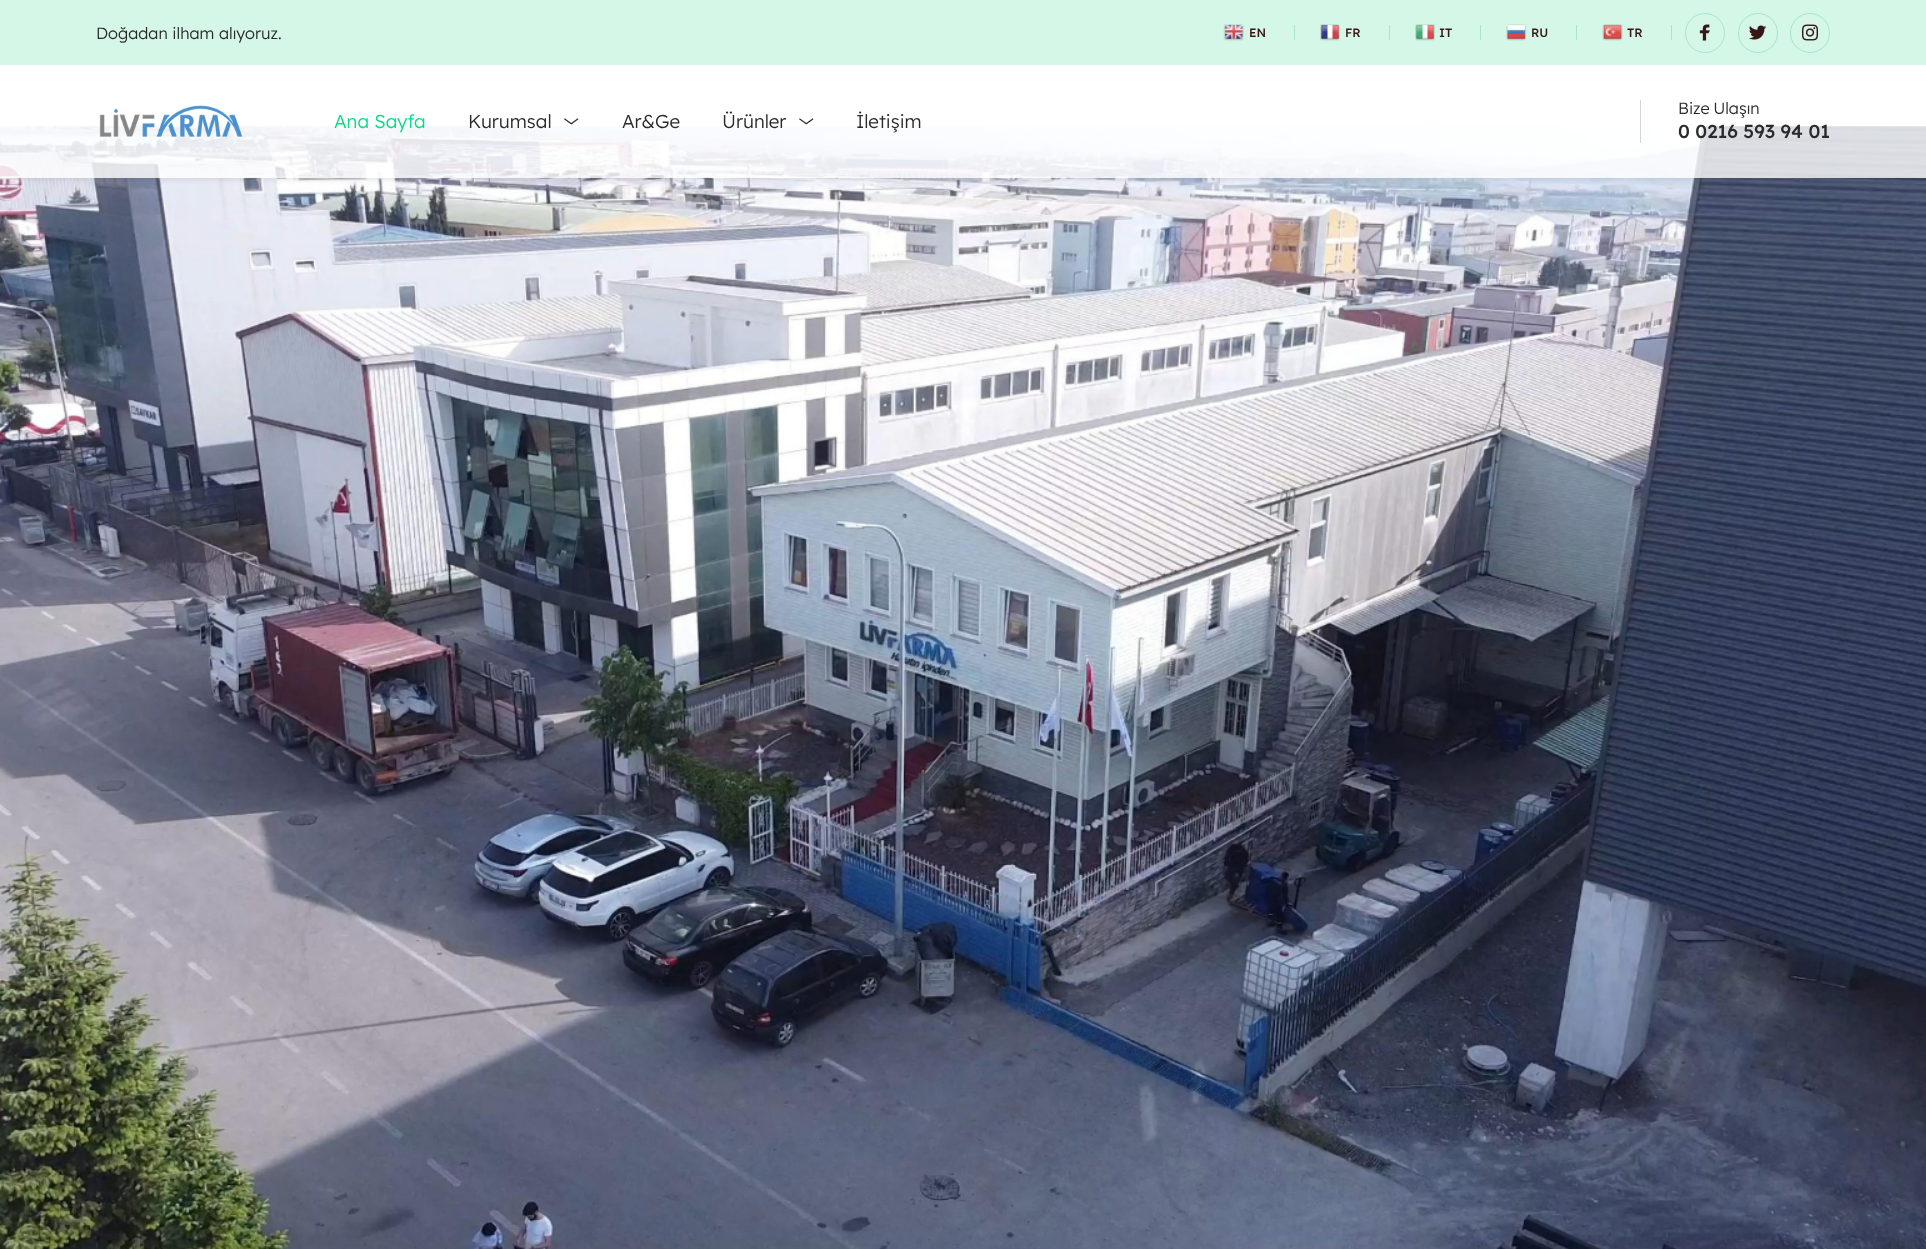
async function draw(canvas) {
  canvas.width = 1926
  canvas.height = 1249
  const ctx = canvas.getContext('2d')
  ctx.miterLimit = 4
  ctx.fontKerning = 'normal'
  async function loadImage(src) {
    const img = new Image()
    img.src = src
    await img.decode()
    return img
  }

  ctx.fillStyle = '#fff'
  ctx.fillRect(0, 0, 1926, 1249)
  ctx.drawImage(await loadImage('image10.png'), 0, 126, 1926, 1123)
  ctx.save()
  ctx.beginPath()
  ctx.moveTo(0, 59)
  ctx.lineTo(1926, 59)
  ctx.lineTo(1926, 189)
  ctx.lineTo(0, 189)
  ctx.closePath()
  ctx.moveTo(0, 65)
  ctx.lineTo(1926, 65)
  ctx.lineTo(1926, 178)
  ctx.lineTo(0, 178)
  ctx.closePath()
  ctx.clip('evenodd')
  ctx.fillStyle = '#2a2a2a1a'
  ctx.filter = 'blur(2.5px)'
  ctx.beginPath()
  ctx.rect(0, 68, 1926, 112)
  ctx.fill()
  ctx.filter = 'none'
  ctx.restore()
  ctx.fillStyle = '#d4f7e8'
  ctx.fillRect(0, 0, 1926, 65)
  ctx.font = '300 16.25px Lexend'
  ctx.fillStyle = '#2a2a2a'
  ctx.fillText('Doğadan ilham alıyoruz.', 96, 39)
  ctx.drawImage(await loadImage('image0.png'), 1223, 24, 21, 17)
  ctx.font = '500 12px Lexend'
  ctx.fillStyle = '#371616'
  ctx.fillText('EN', 1249, 37)
  ctx.fillStyle = '#aae4ce'
  ctx.fillRect(1294, 25, 1, 15)
  ctx.drawImage(await loadImage('image1.png'), 1320, 24, 20, 17)
  ctx.fillStyle = '#371616'
  ctx.fillText('FR', 1345, 37)
  ctx.fillStyle = '#aae4ce'
  ctx.fillRect(1389, 25, 1, 15)
  ctx.drawImage(await loadImage('image2.png'), 1415, 24, 20, 17)
  ctx.fillStyle = '#371616'
  ctx.fillText('IT', 1439, 37)
  ctx.fillStyle = '#aae4ce'
  ctx.fillRect(1480, 25, 1, 15)
  ctx.drawImage(await loadImage('image3.png'), 1506, 24, 21, 17)
  ctx.fillStyle = '#371616'
  ctx.fillText('RU', 1531, 37)
  ctx.fillStyle = '#aae4ce'
  ctx.fillRect(1576, 25, 1, 15)
  ctx.drawImage(await loadImage('image4.png'), 1602, 24, 21, 17)
  ctx.fillStyle = '#371616'
  ctx.fillText('TR', 1627, 37)
  ctx.fillStyle = '#aae4ce'
  ctx.fillRect(1671, 25, 1, 15)
  ctx.beginPath()
  ctx.arc(1705, 33, 19.5, 0, 2 * Math.PI)
  ctx.strokeStyle = '#aae4ce'
  ctx.stroke()
  ctx.drawImage(await loadImage('image5.png'), 1699, 24, 11, 17)
  ctx.beginPath()
  ctx.arc(1758, 33, 19.5, 0, 2 * Math.PI)
  ctx.stroke()
  ctx.drawImage(await loadImage('image6.png'), 1749, 25, 18, 15)
  ctx.beginPath()
  ctx.arc(1810, 33, 19.5, 0, 2 * Math.PI)
  ctx.stroke()
  ctx.drawImage(await loadImage('image7.png'), 1802, 24, 16, 17)
  ctx.fillStyle = '#ffffffcc'
  ctx.fillRect(0, 126, 1926, 52)
  ctx.drawImage(await loadImage('image8.png'), 99, 105, 144, 32)
  ctx.font = '300 18.75px Lexend'
  ctx.fillStyle = '#03dd84'
  ctx.fillText('Ana Sayfa', 334, 128)
  ctx.fillStyle = '#2a2a2a'
  ctx.fillText('Kurumsal', 468, 128)
  ctx.drawImage(await loadImage('image9.png'), 564, 118, 15, 7)
  ctx.fillText('Ar&Ge', 622, 128)
  ctx.fillText('Ürünler', 722, 128)
  ctx.drawImage(await loadImage('image9.png'), 799, 118, 15, 7)
  ctx.fillText('İletişim', 856, 128)
  ctx.fillStyle = '#d4d4d4'
  ctx.fillRect(1640, 100, 1, 43)
  ctx.wordSpacing = '-1px'
  ctx.font = '300 16.25px Lexend'
  ctx.fillStyle = '#2a2a2a'
  ctx.fillText('Bize Ulaşın', 1678, 114)
  ctx.wordSpacing = '0px'
  ctx.font = '500 18.75px Lexend'
  ctx.fillText('0 0216 593 94 01', 1678, 138)
}

draw(document.querySelector('canvas'))
